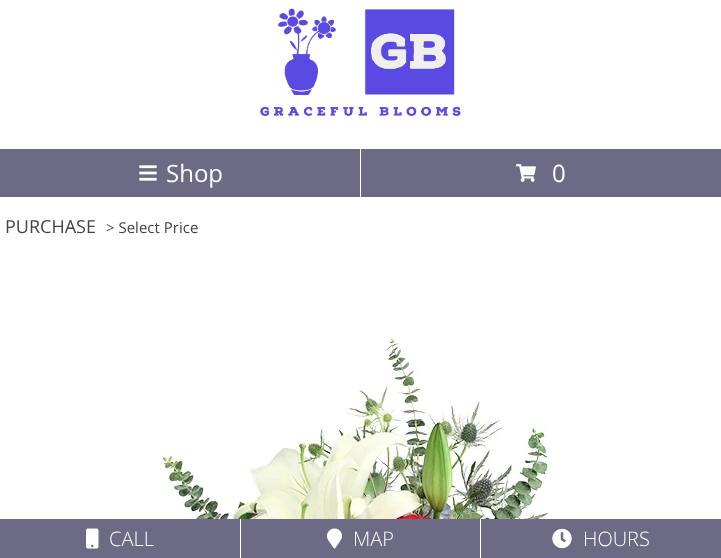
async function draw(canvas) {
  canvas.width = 721
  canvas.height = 558
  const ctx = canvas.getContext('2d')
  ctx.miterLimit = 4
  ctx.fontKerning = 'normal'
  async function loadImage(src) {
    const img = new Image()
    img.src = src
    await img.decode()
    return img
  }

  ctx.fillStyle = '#fff'
  ctx.fillRect(0, 0, 721, 558)
  ctx.drawImage(await loadImage('image0.png'), 260, 8, 201, 108)
  ctx.fillStyle = '#6d6a85'
  ctx.fillRect(0, 149, 360, 48)
  ctx.drawImage(await loadImage('image1.png'), 139, 165, 18, 16)
  ctx.font = '24px Open Sans'
  ctx.fillStyle = '#fff'
  ctx.fillText('Shop', 166, 182)
  ctx.fillStyle = '#6d6a85'
  ctx.fillRect(361, 149, 360, 48)
  ctx.drawImage(await loadImage('image2.png'), 516, 164, 20, 18)
  ctx.fillStyle = '#fff'
  ctx.fillText('0', 552, 182)
  ctx.font = '18px Open Sans'
  ctx.fillStyle = '#444'
  ctx.fillText('PURCHASE', 5, 233)
  ctx.font = '15px Open Sans'
  ctx.fillText('> Select Price', 106, 233)
  ctx.drawImage(await loadImage('image3.png'), 161, 337, 388, 182)
  ctx.fillStyle = '#6d6a85'
  ctx.fillRect(0, 519, 240, 39)
  ctx.drawImage(await loadImage('image4.png'), 86, 528, 13, 21)
  ctx.font = '300 20px Open Sans'
  ctx.fillStyle = '#fff'
  ctx.fillText('CALL', 109, 546)
  ctx.fillStyle = '#6d6a85'
  ctx.fillRect(241, 519, 239, 39)
  ctx.drawImage(await loadImage('image5.png'), 327, 528, 15, 21)
  ctx.fillStyle = '#fff'
  ctx.fillText('MAP', 353, 546)
  ctx.fillStyle = '#6d6a85'
  ctx.fillRect(481, 519, 240, 39)
  ctx.drawImage(await loadImage('image6.png'), 552, 528, 20, 21)
  ctx.fillStyle = '#fff'
  ctx.fillText('HOURS', 583, 546)
}

draw(document.querySelector('canvas'))
